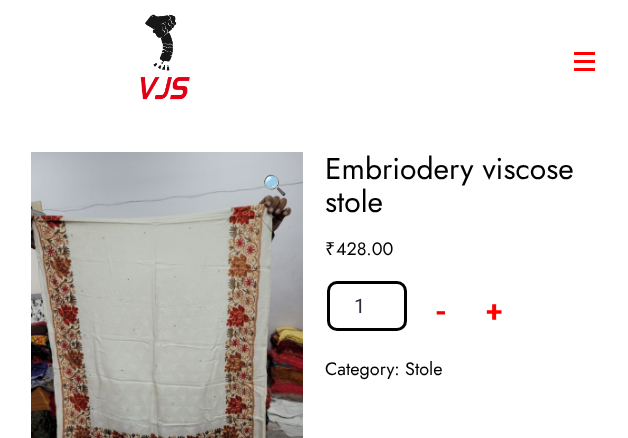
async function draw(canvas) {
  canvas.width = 628
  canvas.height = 438
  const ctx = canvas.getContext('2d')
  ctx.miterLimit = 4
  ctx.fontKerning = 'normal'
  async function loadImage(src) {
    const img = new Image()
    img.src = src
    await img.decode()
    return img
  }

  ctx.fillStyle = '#fff'
  ctx.fillRect(0, 0, 628, 438)
  ctx.drawImage(await loadImage('image0.png'), 140, 14, 50, 86)
  ctx.fillStyle = '#fe0000'
  ctx.fillRect(574, 52, 21, 3)
  ctx.fillRect(574, 60, 21, 3)
  ctx.fillRect(574, 68, 21, 3)
  ctx.drawImage(await loadImage('image1.png'), 31, 152, 272, 286)
  ctx.font = '20px Noto Color Emoji'
  ctx.fillStyle = '#000'
  ctx.fillText('🔍', 262, 192)
  ctx.font = '30px Jost'
  ctx.fillText('Embriodery viscose', 325, 179)
  ctx.fillText('stole', 325, 212)
  ctx.font = '18px Noto Sans'
  ctx.fillText('₹', 325, 255)
  ctx.font = '18px Jost'
  ctx.fillText('428.00', 336, 255)
  ctx.beginPath()
  ctx.roundRect(328.5, 282.5, 77, 47, 8.5)
  ctx.strokeStyle = '#000'
  ctx.lineWidth = 3
  ctx.stroke()
  ctx.font = '20px Roboto'
  ctx.fillStyle = '#28303d'
  ctx.fillText('1', 354, 313)
  ctx.font = 'bold 30px Roboto'
  ctx.fillStyle = '#f20000'
  ctx.fillText('-', 435, 322)
  ctx.fillStyle = '#f00'
  ctx.fillText('+', 486, 322)
  ctx.font = '18px Jost'
  ctx.fillStyle = '#000'
  ctx.fillText('Category: Stole', 325, 375)
}

draw(document.querySelector('canvas'))
